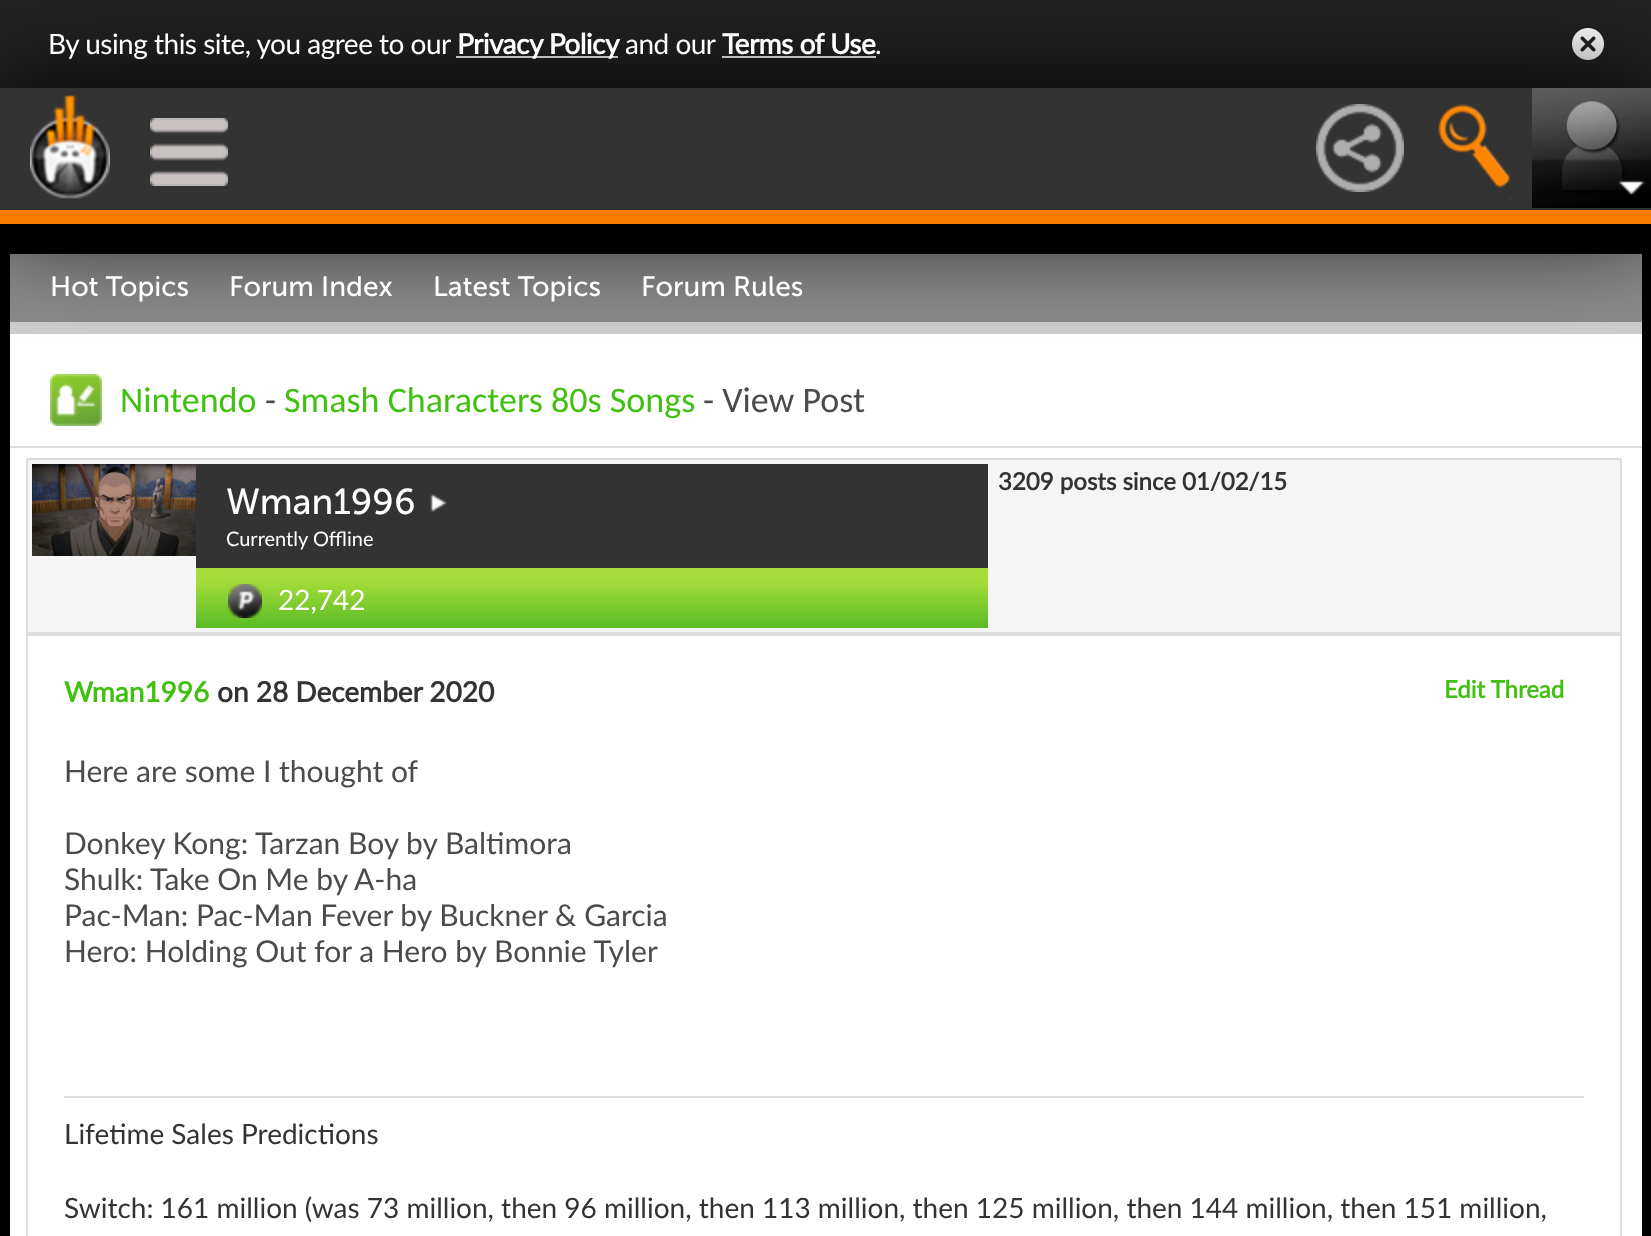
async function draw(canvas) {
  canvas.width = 1651
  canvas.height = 1236
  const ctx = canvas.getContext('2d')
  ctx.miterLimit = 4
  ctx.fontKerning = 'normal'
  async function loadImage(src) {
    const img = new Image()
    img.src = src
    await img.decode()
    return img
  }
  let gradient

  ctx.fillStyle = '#000'
  ctx.fillRect(0, 0, 1651, 1236)
  ctx.fillStyle = '#222'
  ctx.fillRect(0, 0, 1651, 88)
  ctx.fillStyle = '#fff'
  ctx.fillRect(456, 56, 162, 2)
  ctx.fillRect(722, 56, 154, 2)
  ctx.drawImage(await loadImage('image6.png'), 1572, 28, 32, 32)
  ctx.fillRect(10, 334, 1632, 902)
  ctx.fillStyle = '#8a8a8a'
  ctx.fillRect(10, 254, 1632, 68)
  ctx.fillStyle = '#cdcdcd'
  ctx.fillRect(10, 322, 1632, 12)
  ctx.drawImage(await loadImage('image7.png'), 50, 374, 52, 52)
  ctx.fillStyle = '#000'
  ctx.filter = 'blur(50px)'
  ctx.beginPath()
  ctx.rect(0, 90, 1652, 136)
  ctx.fill()
  ctx.filter = 'none'
  ctx.fillStyle = '#333'
  ctx.fillRect(0, 88, 1651, 122)
  ctx.drawImage(await loadImage('image0.png'), 30, 95, 80, 104)
  ctx.drawImage(await loadImage('image1.png'), 150, 118, 78, 68)
  ctx.drawImage(await loadImage('image2.png'), 1316, 104, 88, 88)
  ctx.drawImage(await loadImage('image3.png'), 1438, 93, 77, 107)
  ctx.drawImage(await loadImage('image4.png'), 1532, 88, 119, 120)
  ctx.drawImage(await loadImage('image5.png'), 1532, 159, 119, 38)
  ctx.fillStyle = '#f97b00'
  ctx.fillRect(0, 210, 1651, 14)
  ctx.letterSpacing = '-0.5px'
  ctx.font = '28px Lato'
  ctx.fillStyle = '#fff'
  ctx.fillText('By using this site, you agree to our', 48, 54)
  ctx.font = 'bold 28px Lato'
  ctx.fillText('Privacy Policy', 457, 54)
  ctx.font = '28px Lato'
  ctx.fillText('and our', 625, 54)
  ctx.font = 'bold 28px Lato'
  ctx.fillText('Terms of Use', 722, 54)
  ctx.font = '28px Lato'
  ctx.fillText('.', 875, 54)
  ctx.letterSpacing = '0px'
  ctx.font = '28px Museo Sans'
  ctx.fillText('Hot Topics', 50, 296)
  ctx.fillText('Forum Index', 229, 296)
  ctx.fillText('Latest Topics', 433, 296)
  ctx.fillText('Forum Rules', 641, 296)
  ctx.font = '36px Carlito'
  ctx.fillStyle = '#42c011'
  ctx.fillText('Nintendo', 120, 412)
  ctx.fillStyle = '#4b4b4b'
  ctx.fillText('-', 265, 412)
  ctx.fillStyle = '#42c011'
  ctx.fillText('Smash Characters 80s Songs', 284, 412)
  ctx.fillStyle = '#4b4b4b'
  ctx.fillText('- View Post', 703, 412)
  ctx.fillStyle = '#ddd'
  ctx.fillRect(10, 446, 1632, 2)
  ctx.fillStyle = '#f5f5f5'
  ctx.beginPath()
  ctx.rect(27, 459, 1594, 174)
  ctx.fill()
  ctx.strokeStyle = '#ddd'
  ctx.lineWidth = 2
  ctx.stroke()
  ctx.drawImage(await loadImage('image8.png'), 32, 464, 164, 92)
  ctx.font = 'bold 24px Lato'
  ctx.fillStyle = '#333'
  ctx.fillText('3209 posts since 01/02/15', 998, 490)
  gradient = ctx.createLinearGradient(196, 464, 196, 628)
  gradient.addColorStop(0, '#a5dc39')
  gradient.addColorStop(0.71, '#a5dc39')
  gradient.addColorStop(1, '#59bc25')
  ctx.fillStyle = gradient
  ctx.fillRect(196, 568, 792, 60)
  ctx.fillStyle = '#333'
  ctx.fillRect(196, 464, 792, 104)
  ctx.drawImage(await loadImage('image9.png'), 430, 494, 16, 18)
  ctx.font = '36px Museo Sans'
  ctx.fillStyle = '#fff'
  ctx.fillText('Wman1996', 226, 514)
  ctx.font = '20px Lato'
  ctx.fillText('Currently Offline', 226, 546)
  ctx.drawImage(await loadImage('image10.png'), 228, 584, 34, 34)
  ctx.font = '28px Lato'
  ctx.fillText('22,742', 278, 610)
  ctx.strokeRect(27, 635, 1594, 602)
  ctx.font = 'bold 28px Lato'
  ctx.fillStyle = '#42c011'
  ctx.fillText('Wman1996', 64, 702)
  ctx.fillStyle = '#333'
  ctx.fillText('on 28 December 2020', 217, 702)
  ctx.font = 'bold 24px Lato'
  ctx.fillStyle = '#42c011'
  ctx.fillText('Edit Thread', 1444, 698)
  ctx.font = '30px Lato'
  ctx.fillStyle = '#4b4b4b'
  ctx.fillText('Here are some I thought of', 64, 782)
  ctx.fillText('Donkey Kong: Tarzan Boy by Baltimora', 64, 854)
  ctx.fillText('Shulk: Take On Me by A-ha', 64, 890)
  ctx.fillText('Pac-Man: Pac-Man Fever by Buckner & Garcia', 64, 926)
  ctx.fillText('Hero: Holding Out for a Hero by Bonnie Tyler', 64, 962)
  ctx.fillStyle = '#ddd'
  ctx.fillRect(64, 1096, 1520, 2)
  ctx.font = '28px Lato'
  ctx.fillStyle = '#333'
  ctx.fillText('Lifetime Sales Predictions', 64, 1144)
  ctx.fillText('Switch: 161 million (was 73 million, then 96 million, then 113 million, then 125 million, then 144 million, then 151 million,', 64, 1218)
}

draw(document.querySelector('canvas'))
